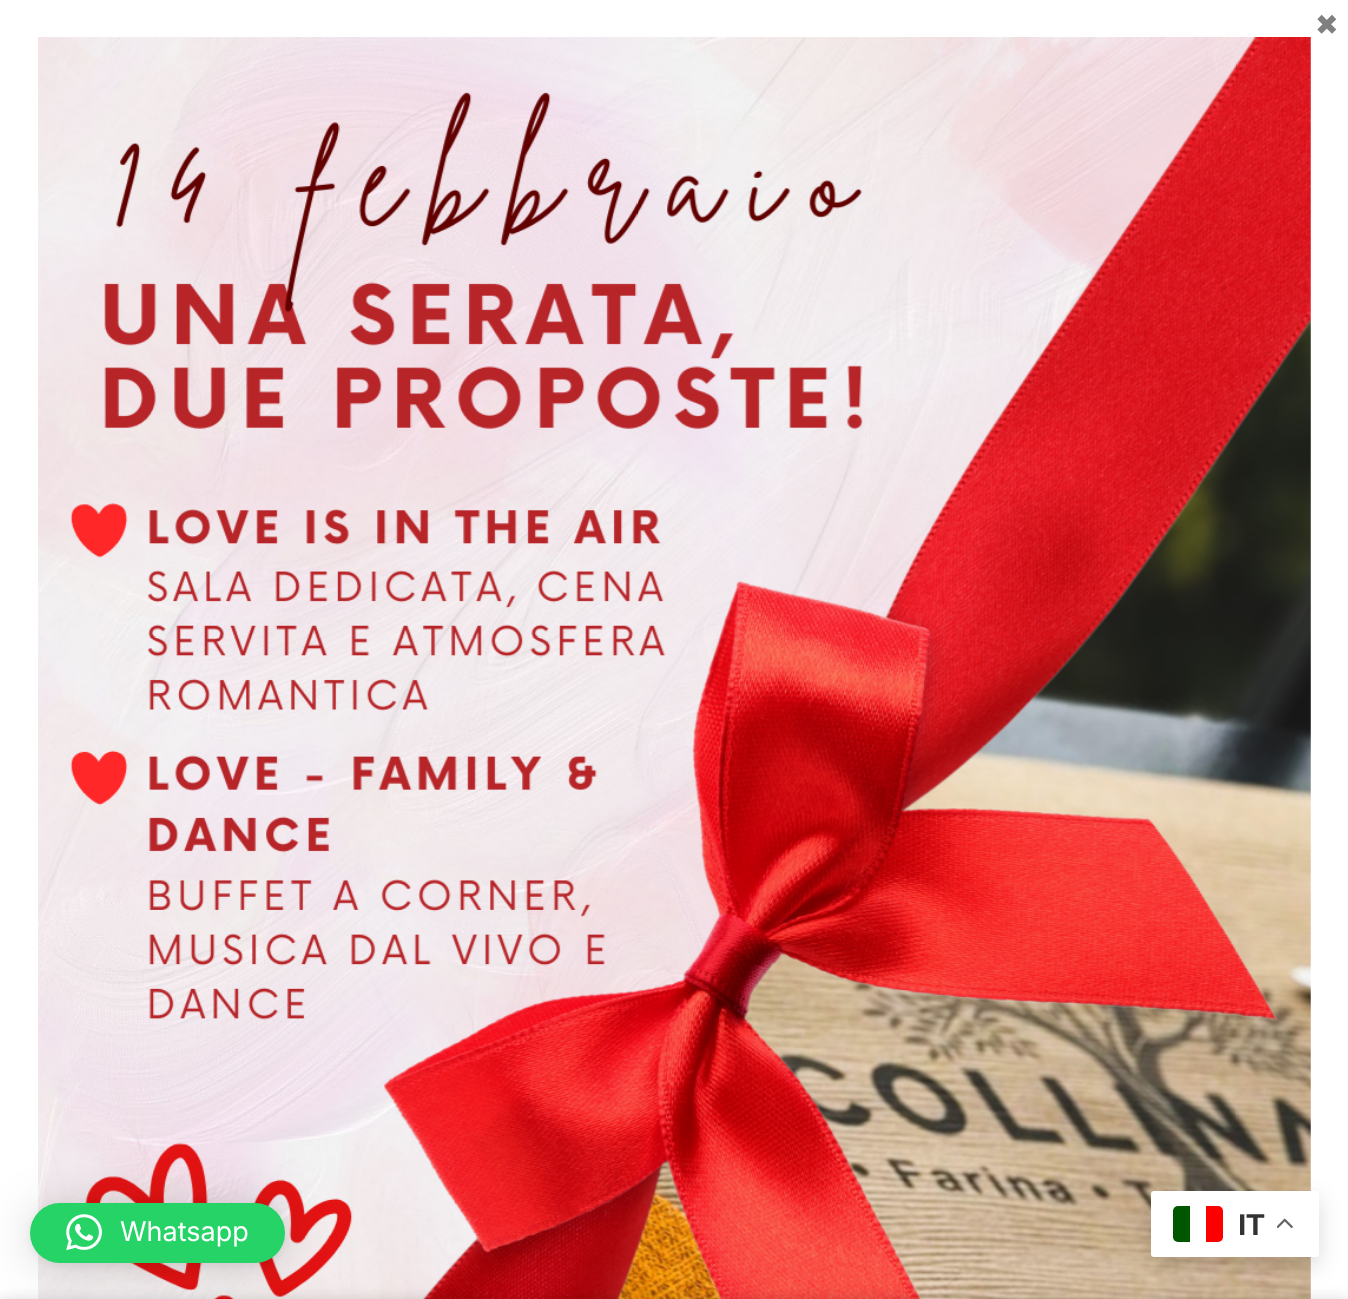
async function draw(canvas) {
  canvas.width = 1348
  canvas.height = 1299
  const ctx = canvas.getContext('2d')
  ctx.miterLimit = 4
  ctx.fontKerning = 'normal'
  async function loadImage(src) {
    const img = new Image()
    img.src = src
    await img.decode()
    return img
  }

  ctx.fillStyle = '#fff'
  ctx.fillRect(0, 0, 1348, 1299)
  ctx.font = '800 42px Montserrat'
  ctx.fillStyle = '#808080'
  ctx.fillText('×', 1314, 39)
  ctx.drawImage(await loadImage('image0.png'), 38, 37, 1273, 1262)
  ctx.fillStyle = '#00000029'
  ctx.filter = 'blur(24px)'
  ctx.beginPath()
  ctx.roundRect(30, 1206, 255, 60, 30)
  ctx.fill()
  ctx.filter = 'none'
  ctx.fillStyle = '#0000000f'
  ctx.filter = 'blur(4.5px)'
  ctx.beginPath()
  ctx.roundRect(30, 1205, 255, 60, 30)
  ctx.fill()
  ctx.filter = 'none'
  ctx.fillStyle = '#25d366'
  ctx.beginPath()
  ctx.roundRect(30, 1203, 255, 60, 30)
  ctx.fill()
  ctx.drawImage(await loadImage('image1.png'), 66, 1214, 36, 37)
  ctx.font = '27px Inter'
  ctx.fillStyle = '#fff'
  ctx.fillText('Whatsapp', 120, 1241)
  ctx.fillStyle = '#00000026'
  ctx.filter = 'blur(11px)'
  ctx.beginPath()
  ctx.roundRect(1151, 1199, 168, 66, 3)
  ctx.fill()
  ctx.filter = 'none'
  ctx.fillStyle = '#fff'
  ctx.beginPath()
  ctx.roundRect(1151, 1191, 168, 66, 3)
  ctx.fill()
  ctx.fillStyle = '#005700'
  ctx.beginPath()
  ctx.roundRect(1173, 1206, 17, 36, [5, 0, 0, 5])
  ctx.fill()
  ctx.fillStyle = '#fc0000'
  ctx.beginPath()
  ctx.roundRect(1206, 1206, 17, 36, [0, 5, 5, 0])
  ctx.fill()
  ctx.font = 'bold 30px Liberation Sans'
  ctx.fillStyle = '#333'
  ctx.fillText('IT', 1238, 1235)
  ctx.drawImage(await loadImage('image2.png'), 1277, 1218, 16, 11)
  ctx.fillStyle = '#00000024'
  ctx.filter = 'blur(7px)'
  ctx.beginPath()
  ctx.rect(0, 1299, 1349, 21)
  ctx.fill()
  ctx.filter = 'none'
}

draw(document.querySelector('canvas'))
